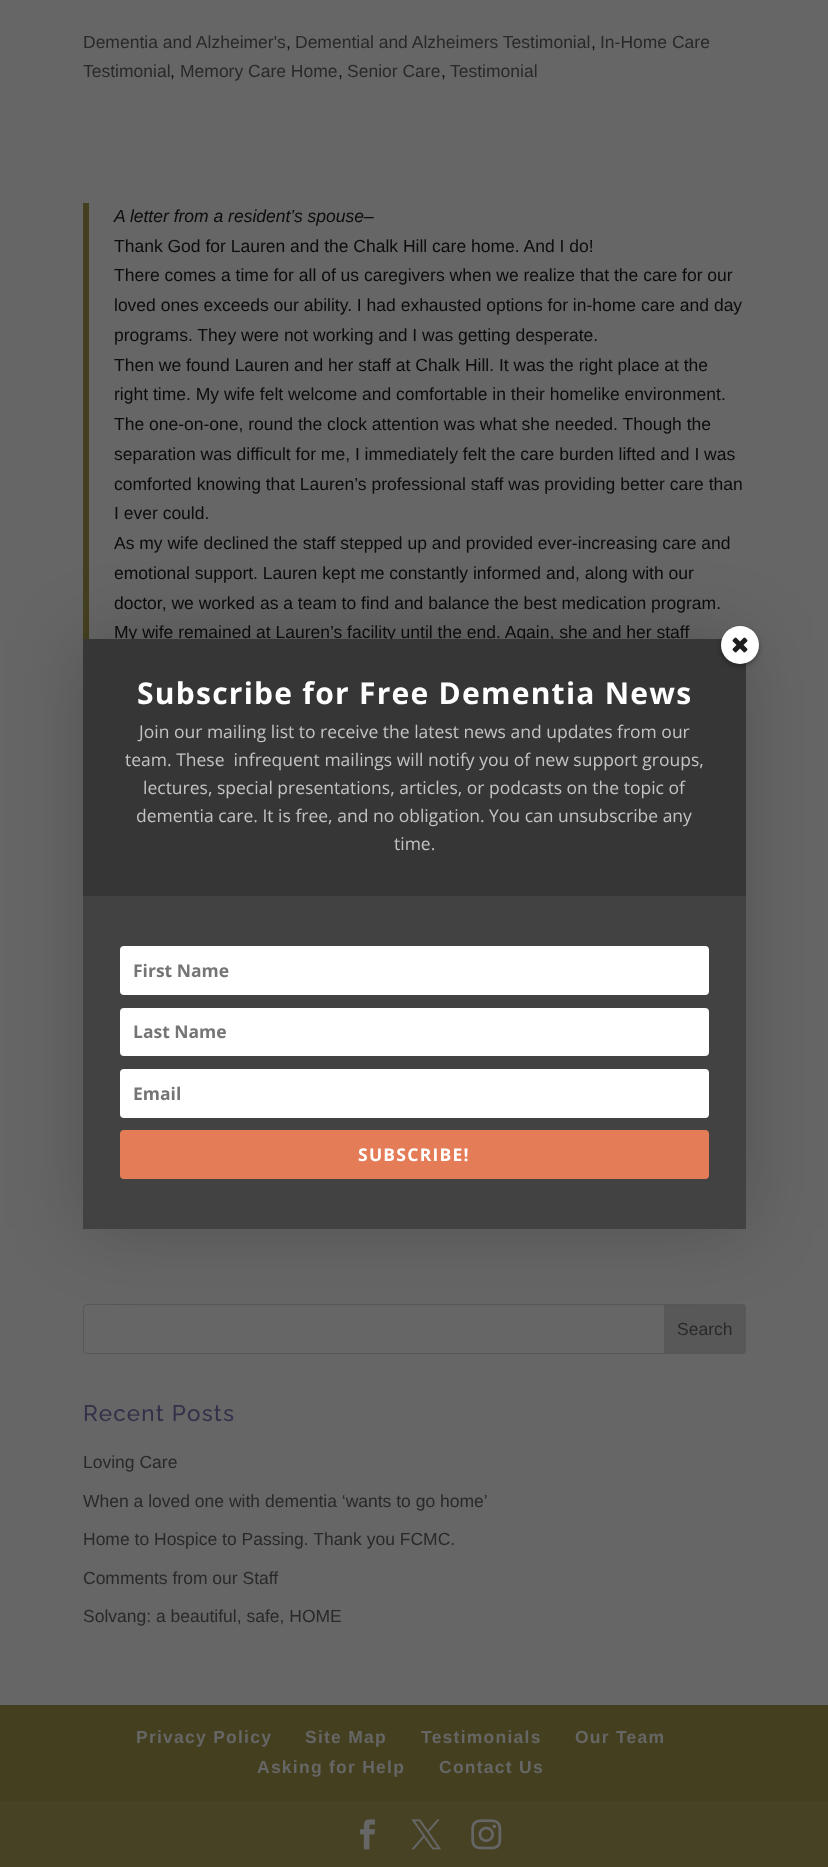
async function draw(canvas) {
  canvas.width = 828
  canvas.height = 1867
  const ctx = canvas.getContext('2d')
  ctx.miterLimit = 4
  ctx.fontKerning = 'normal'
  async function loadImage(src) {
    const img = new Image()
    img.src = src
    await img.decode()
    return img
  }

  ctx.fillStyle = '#666'
  ctx.fillRect(0, 0, 828, 1867)
  ctx.font = '17.5px Liberation Sans'
  ctx.fillStyle = '#292929'
  ctx.fillText('Dementia and Alzheimer\'s', 83, 48)
  ctx.fillStyle = '#0c0c0c'
  ctx.fillText(',', 286, 48)
  ctx.fillStyle = '#292929'
  ctx.fillText('Demential and Alzheimers Testimonial', 295, 48)
  ctx.fillStyle = '#0c0c0c'
  ctx.fillText(',', 591, 48)
  ctx.fillStyle = '#292929'
  ctx.fillText('In-Home Care', 600, 48)
  ctx.fillText('Testimonial', 83, 77)
  ctx.fillStyle = '#0c0c0c'
  ctx.fillText(',', 170, 77)
  ctx.fillStyle = '#292929'
  ctx.fillText('Memory Care Home', 180, 77)
  ctx.fillStyle = '#0c0c0c'
  ctx.fillText(',', 338, 77)
  ctx.fillStyle = '#292929'
  ctx.fillText('Senior Care', 347, 77)
  ctx.fillStyle = '#0c0c0c'
  ctx.fillText(',', 441, 77)
  ctx.fillStyle = '#292929'
  ctx.fillText('Testimonial', 450, 77)
  ctx.fillStyle = '#44401f'
  ctx.fillRect(83, 203, 6, 436)
  ctx.font = 'italic 17.5px Liberation Sans'
  ctx.fillStyle = '#0c0c0c'
  ctx.fillText('A letter from a resident’s spouse–', 114, 222)
  ctx.font = '17.5px Liberation Sans'
  ctx.fillText('Thank God for Lauren and the Chalk Hill care home. And I do!', 114, 252)
  ctx.fillText('There comes a time for all of us caregivers when we realize that the care for our', 114, 281)
  ctx.fillText('loved ones exceeds our ability. I had exhausted options for in-home care and day', 114, 311)
  ctx.fillText('programs. They were not working and I was getting desperate.', 114, 341)
  ctx.fillText('Then we found Lauren and her staff at Chalk Hill. It was the right place at the', 114, 371)
  ctx.fillText('right time. My wife felt welcome and comfortable in their homelike environment.', 114, 400)
  ctx.fillText('The one-on-one, round the clock attention was what she needed. Though the', 114, 430)
  ctx.fillText('separation was difficult for me, I immediately felt the care burden lifted and I was', 114, 460)
  ctx.fillText('comforted knowing that Lauren’s professional staff was providing better care than', 114, 490)
  ctx.fillText('I ever could.', 114, 519)
  ctx.fillText('As my wife declined the staff stepped up and provided ever-increasing care and', 114, 549)
  ctx.fillText('emotional support. Lauren kept me constantly informed and, along with our', 114, 579)
  ctx.fillText('doctor, we worked as a team to find and balance the best medication program.', 114, 609)
  ctx.fillText('My wife remained at Lauren’s facility until the end. Again, she and her staff', 114, 638)
  ctx.beginPath()
  ctx.roundRect(83.5, 1304.5, 662, 49, 3.5)
  ctx.strokeStyle = '#585858'
  ctx.stroke()
  ctx.fillStyle = '#585858'
  ctx.beginPath()
  ctx.roundRect(664, 1304, 82, 50, [0, 4, 4, 0])
  ctx.fill()
  ctx.fillStyle = '#292929'
  ctx.fillText('Search', 677, 1335)
  ctx.letterSpacing = '1.25px'
  ctx.font = '500 22.5px Raleway'
  ctx.fillStyle = '#333049'
  ctx.fillText('Recent Posts', 83, 1421)
  ctx.letterSpacing = '0px'
  ctx.font = '17.5px Liberation Sans'
  ctx.fillStyle = '#292929'
  ctx.fillText('Loving Care', 83, 1468)
  ctx.fillText('When a loved one with dementia ‘wants to go home’', 83, 1507)
  ctx.fillText('Home to Hospice to Passing. Thank you FCMC.', 83, 1545)
  ctx.fillText('Comments from our Staff', 83, 1584)
  ctx.fillText('Solvang: a beautiful, safe, HOME', 83, 1622)
  ctx.fillStyle = '#44401f'
  ctx.fillRect(0, 1705, 828, 96)
  ctx.letterSpacing = '1.25px'
  ctx.font = 'bold 17.5px Liberation Sans'
  ctx.fillStyle = '#666'
  ctx.fillText('Privacy Policy', 136, 1743)
  ctx.fillText('Site Map', 305, 1743)
  ctx.fillText('Testimonials', 421, 1743)
  ctx.fillText('Our Team', 575, 1743)
  ctx.fillText('Asking for Help', 257, 1773)
  ctx.fillText('Contact Us', 439, 1773)
  ctx.fillStyle = '#464223'
  ctx.fillRect(0, 1801, 828, 66)
  ctx.drawImage(await loadImage('image0.png'), 360, 1819, 16, 31)
  ctx.drawImage(await loadImage('image1.png'), 411, 1819, 30, 31)
  ctx.drawImage(await loadImage('image2.png'), 471, 1819, 31, 31)
  ctx.fillStyle = '#00000033'
  ctx.filter = 'blur(37.5px)'
  ctx.beginPath()
  ctx.rect(83, 639, 663, 590)
  ctx.fill()
  ctx.filter = 'none'
  ctx.fillStyle = '#363636'
  ctx.fillRect(83, 639, 663, 257)
  ctx.fillStyle = '#00000057'
  ctx.filter = 'blur(2.5px)'
  ctx.beginPath()
  ctx.roundRect(721, 629, 38, 37, 18.5)
  ctx.fill()
  ctx.filter = 'none'
  ctx.fillStyle = '#fff'
  ctx.beginPath()
  ctx.arc(740, 645, 19, 0, 2 * Math.PI)
  ctx.fill()
  ctx.drawImage(await loadImage('image3.png'), 732, 637, 16, 16)
  ctx.font = 'bold 30px Open Sans'
  ctx.fillText('Subscribe for Free Dementia News', 137, 704)
  ctx.letterSpacing = '0px'
  ctx.font = '17.5px Open Sans'
  ctx.fillStyle = '#c3c3c3'
  ctx.fillText('Join our mailing list to receive the latest news and updates from our', 139, 738)
  ctx.fillText('team. These  infrequent mailings will notify you of new support groups,', 125, 766)
  ctx.fillText('lectures, special presentations, articles, or podcasts on the topic of', 143, 794)
  ctx.fillText('dementia care. It is free, and no obligation. You can unsubscribe any', 136, 822)
  ctx.fillText('time.', 394, 850)
  ctx.fillStyle = '#424242'
  ctx.fillRect(83, 896, 663, 333)
  ctx.fillStyle = '#fff'
  ctx.beginPath()
  ctx.roundRect(120, 946, 589, 49, 4)
  ctx.fill()
  ctx.font = 'bold 17.5px Open Sans'
  ctx.fillStyle = '#757575'
  ctx.fillText('First Name', 133, 977)
  ctx.fillStyle = '#fff'
  ctx.beginPath()
  ctx.roundRect(120, 1008, 589, 48, 4)
  ctx.fill()
  ctx.fillStyle = '#757575'
  ctx.fillText('Last Name', 133, 1038)
  ctx.fillStyle = '#fff'
  ctx.beginPath()
  ctx.roundRect(120, 1069, 589, 49, 4)
  ctx.fill()
  ctx.fillStyle = '#757575'
  ctx.fillText('Email', 133, 1100)
  ctx.fillStyle = '#e57c58'
  ctx.beginPath()
  ctx.roundRect(120, 1130, 589, 49, 4)
  ctx.fill()
  ctx.letterSpacing = '1.25px'
  ctx.fillStyle = '#fff'
  ctx.fillText('SUBSCRIBE!', 358, 1161)
}

draw(document.querySelector('canvas'))
